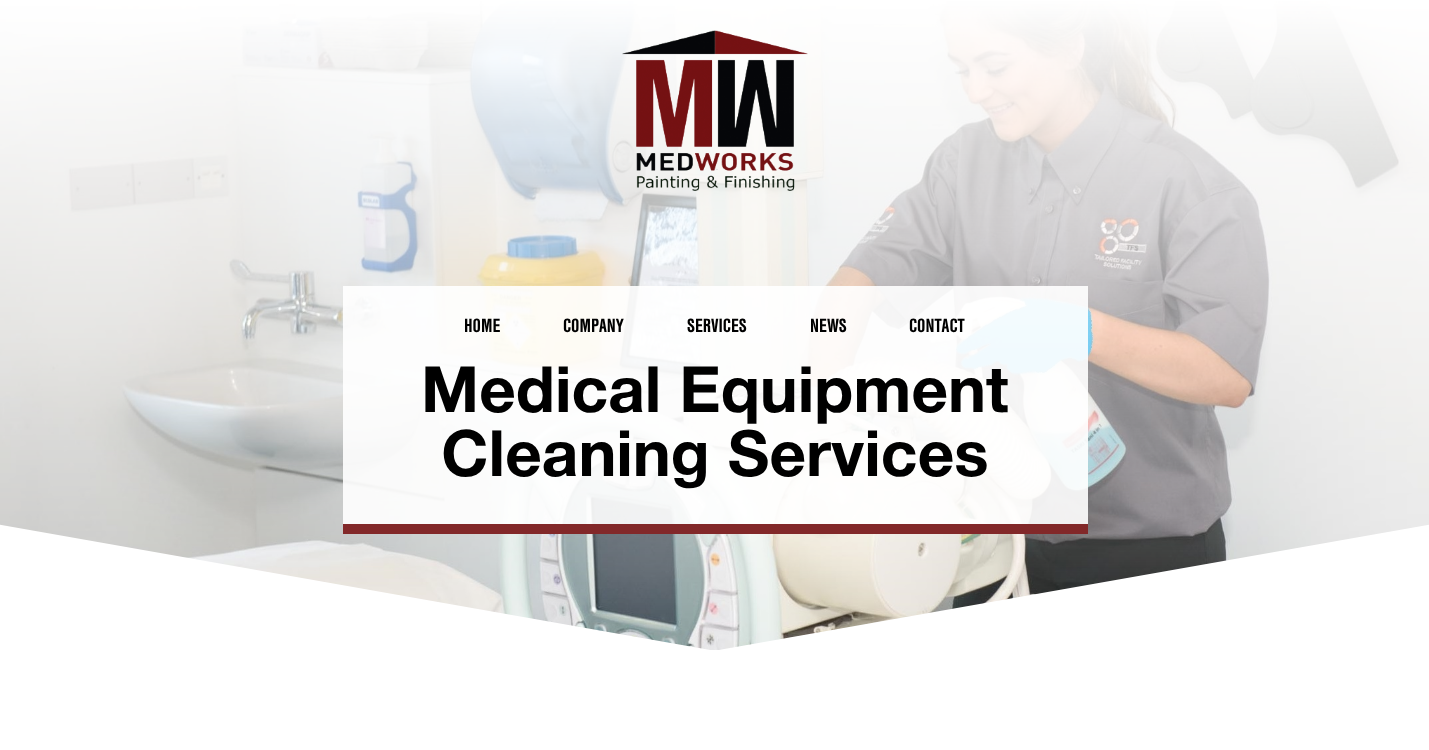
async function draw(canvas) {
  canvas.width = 1429
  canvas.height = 750
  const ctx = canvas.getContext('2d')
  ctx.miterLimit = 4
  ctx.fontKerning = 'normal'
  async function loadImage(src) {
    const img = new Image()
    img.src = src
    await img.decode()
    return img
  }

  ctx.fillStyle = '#fff'
  ctx.fillRect(0, 0, 1429, 750)
  ctx.drawImage(await loadImage('image0.png'), 0, 0, 1429, 650)
  ctx.drawImage(await loadImage('image1.png'), 622, 30, 186, 161)
  ctx.fillStyle = '#ffffffe6'
  ctx.fillRect(343, 286, 745, 238)
  ctx.fillStyle = '#822829'
  ctx.fillRect(343, 524, 745, 10)
  ctx.font = 'bold 20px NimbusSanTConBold'
  ctx.fillStyle = '#000'
  ctx.fillText('HOME', 464, 332)
  ctx.fillText('COMPANY', 563, 332)
  ctx.fillText('SERVICES', 687, 332)
  ctx.fillText('NEWS', 810, 332)
  ctx.fillText('CONTACT', 909, 332)
  ctx.font = 'bold 64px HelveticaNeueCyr'
  ctx.fillText('Medical Equipment', 421, 412)
  ctx.fillText('Cleaning Services', 441, 476)
  ctx.fillStyle = '#fff'
  ctx.beginPath()
  ctx.moveTo(-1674, 358)
  ctx.lineTo(-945, 358)
  ctx.lineTo(716, 651)
  ctx.lineTo(-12, 651)
  ctx.closePath()
  ctx.fill()
  ctx.beginPath()
  ctx.moveTo(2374, 358)
  ctx.lineTo(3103, 358)
  ctx.lineTo(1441, 651)
  ctx.lineTo(713, 651)
  ctx.closePath()
  ctx.fill()
}

draw(document.querySelector('canvas'))
